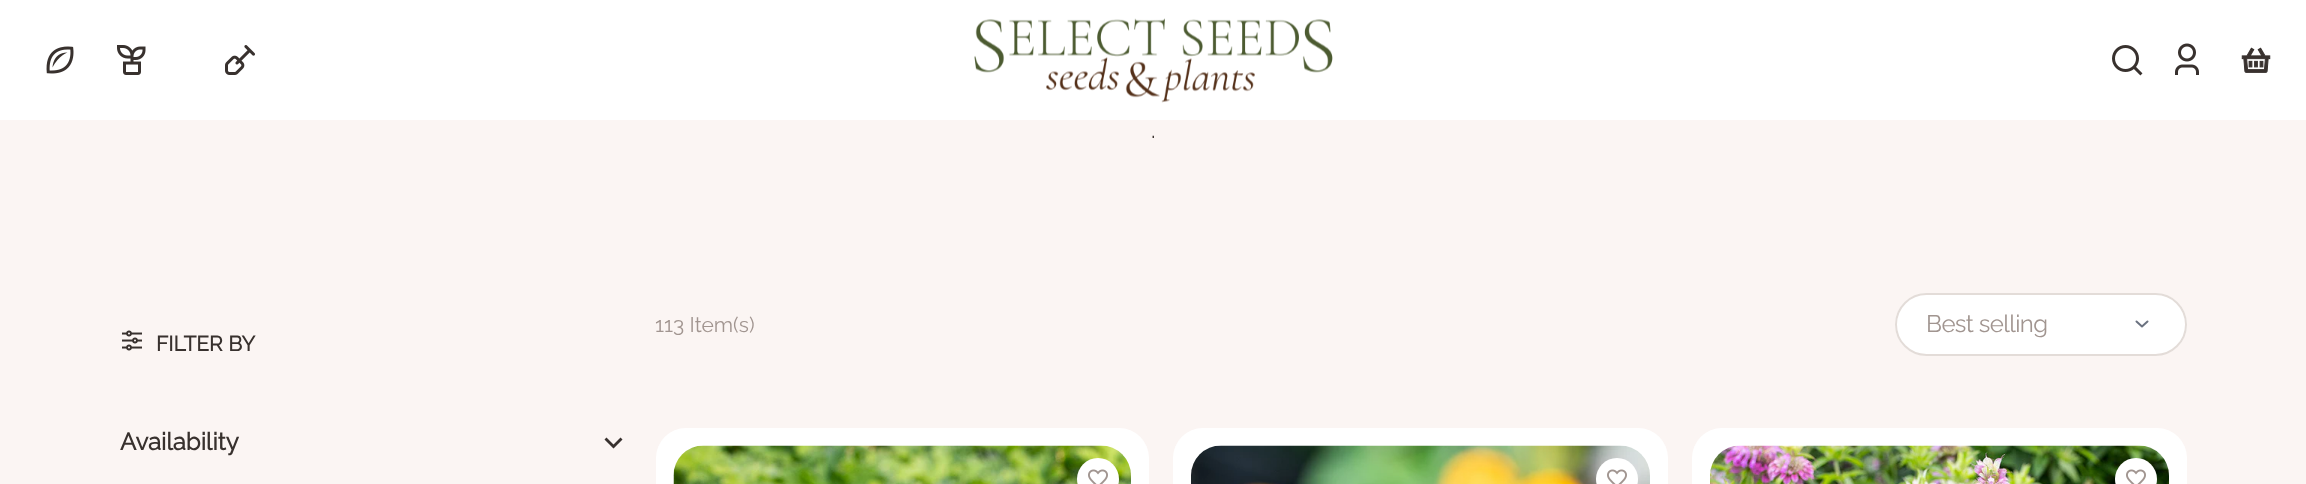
async function draw(canvas) {
  canvas.width = 2306
  canvas.height = 484
  const ctx = canvas.getContext('2d')
  ctx.miterLimit = 4
  ctx.fontKerning = 'normal'
  async function loadImage(src) {
    const img = new Image()
    img.src = src
    await img.decode()
    return img
  }

  ctx.fillStyle = '#fbf5f3'
  ctx.fillRect(0, 0, 2306, 484)
  ctx.fillStyle = '#fff'
  ctx.fillRect(0, 0, 2306, 120)
  ctx.drawImage(await loadImage('image0.png'), 46, 46, 28, 28)
  ctx.drawImage(await loadImage('image1.png'), 117, 45, 29, 30)
  ctx.drawImage(await loadImage('image2.png'), 225, 45, 30, 30)
  ctx.drawImage(await loadImage('image3.png'), 974, 18, 359, 85)
  ctx.drawImage(await loadImage('image4.png'), 2112, 45, 31, 31)
  ctx.drawImage(await loadImage('image5.png'), 2175, 43, 24, 32)
  ctx.drawImage(await loadImage('image6.png'), 2241, 47, 30, 26)
  ctx.font = '100 24px Raleway'
  ctx.fillStyle = '#38312e'
  ctx.fillText('.', 1151, 138)
  ctx.font = '100 21px Raleway'
  ctx.fillStyle = '#a19590'
  ctx.fillText('113 Item(s)', 655, 332)
  ctx.fillStyle = '#fff'
  ctx.beginPath()
  ctx.roundRect(1895, 293, 292, 63, 31.5)
  ctx.fill()
  ctx.beginPath()
  ctx.moveTo(2136.5, 321.5)
  ctx.lineTo(2142, 326.5)
  ctx.lineTo(2147.5, 321.5)
  ctx.strokeStyle = '#6b7280'
  ctx.lineWidth = 2
  ctx.lineCap = 'round'
  ctx.lineJoin = 'round'
  ctx.stroke()
  ctx.beginPath()
  ctx.roundRect(1896, 294, 290, 61, 30.5)
  ctx.strokeStyle = '#e3dcd8'
  ctx.lineJoin = 'miter'
  ctx.stroke()
  ctx.letterSpacing = '-0.6px'
  ctx.font = '100 24px Raleway'
  ctx.fillStyle = '#a19590'
  ctx.fillText('Best selling', 1926, 332)
  ctx.fillStyle = '#fff'
  ctx.beginPath()
  ctx.roundRect(656, 428, 493, 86, 30)
  ctx.fill()
  ctx.drawImage(await loadImage('image7.png'), 673, 445, 458, 39)
  ctx.beginPath()
  ctx.arc(1098, 479, 21, 0, 2 * Math.PI)
  ctx.fill()
  ctx.drawImage(await loadImage('image8.png'), 1088, 469, 20, 15)
  ctx.beginPath()
  ctx.roundRect(1173, 428, 495, 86, 30)
  ctx.fill()
  ctx.drawImage(await loadImage('image9.png'), 1191, 445, 459, 39)
  ctx.beginPath()
  ctx.arc(1617, 479, 21, 0, 2 * Math.PI)
  ctx.fill()
  ctx.drawImage(await loadImage('image8.png'), 1607, 469, 20, 15)
  ctx.beginPath()
  ctx.roundRect(1692, 428, 495, 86, 30)
  ctx.fill()
  ctx.drawImage(await loadImage('image10.png'), 1710, 445, 459, 39)
  ctx.beginPath()
  ctx.arc(2136, 479, 21, 0, 2 * Math.PI)
  ctx.fill()
  ctx.drawImage(await loadImage('image8.png'), 2126, 469, 20, 15)
  ctx.drawImage(await loadImage('image11.png'), 122, 330, 20, 21)
  ctx.letterSpacing = '0px'
  ctx.font = 'bold 21px Raleway'
  ctx.fillStyle = '#38312e'
  ctx.fillText('FILTER BY', 156, 351)
  ctx.font = 'bold 24px Raleway'
  ctx.fillText('Availability', 120, 450)
  ctx.beginPath()
  ctx.moveTo(606.5, 437.5)
  ctx.lineTo(613.5, 444.5)
  ctx.lineTo(620.5, 437.5)
  ctx.lineTo(622.5, 439.5)
  ctx.lineTo(613.5, 448.5)
  ctx.lineTo(604.5, 439.5)
  ctx.closePath()
  ctx.fill()
}

draw(document.querySelector('canvas'))
